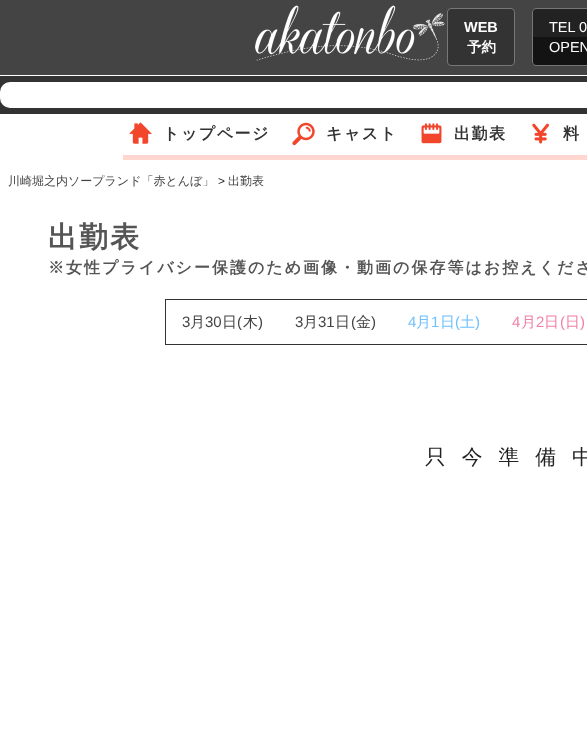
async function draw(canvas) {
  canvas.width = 587
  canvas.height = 750
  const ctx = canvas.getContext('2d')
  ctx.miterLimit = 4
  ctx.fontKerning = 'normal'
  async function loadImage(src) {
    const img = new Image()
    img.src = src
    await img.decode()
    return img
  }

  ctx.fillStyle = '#fff'
  ctx.fillRect(0, 0, 587, 750)
  ctx.fillStyle = '#444'
  ctx.fillRect(0, 0, 587, 75)
  ctx.drawImage(await loadImage('image0.png'), 255, 5, 190, 56)
  ctx.fillStyle = '#333'
  ctx.beginPath()
  ctx.roundRect(447.5, 8.5, 67, 57, 3.5)
  ctx.fill()
  ctx.strokeStyle = '#777'
  ctx.stroke()
  ctx.font = 'bold 14.5px Liberation Sans'
  ctx.fillStyle = '#fff'
  ctx.fillText('WEB', 464, 32)
  ctx.font = 'bold 14.5px WenQuanYi Zen Hei'
  ctx.fillText('予約', 467, 52)
  ctx.save()
  ctx.beginPath()
  ctx.roundRect(532, 8, 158, 58, 4)
  ctx.clip()
  ctx.fillStyle = '#222'
  ctx.fillRect(532, 9, 55, 28)
  ctx.fillStyle = '#131313'
  ctx.fillRect(532, 37, 55, 28)
  ctx.restore()
  ctx.beginPath()
  ctx.roundRect(532.5, 8.5, 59, 57, 3.5)
  ctx.stroke()
  ctx.font = '14.5px Liberation Sans'
  ctx.fillText('TEL 0', 549, 32)
  ctx.fillText('OPEN', 549, 52)
  ctx.fillStyle = '#333'
  ctx.fillRect(0, 76, 587, 38)
  ctx.fillStyle = '#fff'
  ctx.beginPath()
  ctx.roundRect(0, 82, 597, 26, 10)
  ctx.fill()
  ctx.drawImage(await loadImage('image1.png'), 129, 122, 23, 22)
  ctx.fillStyle = '#ffd6d0'
  ctx.fillRect(123, 155, 464, 5)
  ctx.letterSpacing = '1.5px'
  ctx.font = 'bold 16px WenQuanYi Zen Hei'
  ctx.fillStyle = '#333'
  ctx.fillText('トップページ', 163, 139)
  ctx.drawImage(await loadImage('image2.png'), 292, 122, 23, 24)
  ctx.fillText('キャスト', 326, 139)
  ctx.drawImage(await loadImage('image3.png'), 421, 123, 21, 21)
  ctx.fillText('出勤表', 454, 139)
  ctx.drawImage(await loadImage('image4.png'), 532, 123, 17, 21)
  ctx.fillText('料', 563, 139)
  ctx.letterSpacing = '0px'
  ctx.font = '500 12px WenQuanYi Zen Hei'
  ctx.fillStyle = '#444'
  ctx.fillText('川崎堀之内ソープランド「赤とんぼ」', 8, 185)
  ctx.font = '12px Liberation Sans'
  ctx.fillStyle = '#222'
  ctx.fillText('>', 218, 185)
  ctx.font = '500 12px WenQuanYi Zen Hei'
  ctx.fillStyle = '#444'
  ctx.fillText('出勤表', 228, 185)
  ctx.letterSpacing = '2px'
  ctx.font = 'bold 29px WenQuanYi Zen Hei'
  ctx.fillStyle = '#555'
  ctx.fillText('出勤表', 48, 247)
  ctx.font = 'bold 16px WenQuanYi Zen Hei'
  ctx.fillText('※女性プライバシー保護のため画像・動画の保存等はお控えくださ', 48, 273)
  ctx.strokeStyle = '#333'
  ctx.strokeRect(165.5, 299.5, 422, 45)
  ctx.letterSpacing = '0px'
  ctx.font = '15px Liberation Sans'
  ctx.fillStyle = '#444'
  ctx.fillText('3', 182, 327)
  ctx.font = '500 15px WenQuanYi Zen Hei'
  ctx.fillText('月', 190, 327)
  ctx.font = '15px Liberation Sans'
  ctx.fillText('30', 205, 327)
  ctx.font = '500 15px WenQuanYi Zen Hei'
  ctx.fillText('日', 222, 327)
  ctx.font = '15px Liberation Sans'
  ctx.fillText('(', 237, 327)
  ctx.font = '500 15px WenQuanYi Zen Hei'
  ctx.fillText('木', 243, 327)
  ctx.font = '15px Liberation Sans'
  ctx.fillText(')', 258, 327)
  ctx.fillText('3', 295, 327)
  ctx.font = '500 15px WenQuanYi Zen Hei'
  ctx.fillText('月', 303, 327)
  ctx.font = '15px Liberation Sans'
  ctx.fillText('31', 318, 327)
  ctx.font = '500 15px WenQuanYi Zen Hei'
  ctx.fillText('日', 335, 327)
  ctx.font = '15px Liberation Sans'
  ctx.fillText('(', 351, 327)
  ctx.font = '500 15px WenQuanYi Zen Hei'
  ctx.fillText('金', 356, 327)
  ctx.font = '15px Liberation Sans'
  ctx.fillText(')', 371, 327)
  ctx.fillStyle = '#6ec0ff'
  ctx.fillText('4', 408, 327)
  ctx.font = '500 15px WenQuanYi Zen Hei'
  ctx.fillText('月', 416, 327)
  ctx.font = '15px Liberation Sans'
  ctx.fillText('1', 431, 327)
  ctx.font = '500 15px WenQuanYi Zen Hei'
  ctx.fillText('日', 440, 327)
  ctx.font = '15px Liberation Sans'
  ctx.fillText('(', 455, 327)
  ctx.font = '500 15px WenQuanYi Zen Hei'
  ctx.fillText('土', 460, 327)
  ctx.font = '15px Liberation Sans'
  ctx.fillText(')', 475, 327)
  ctx.fillStyle = '#f181a4'
  ctx.fillText('4', 512, 327)
  ctx.font = '500 15px WenQuanYi Zen Hei'
  ctx.fillText('月', 521, 327)
  ctx.font = '15px Liberation Sans'
  ctx.fillText('2', 536, 327)
  ctx.font = '500 15px WenQuanYi Zen Hei'
  ctx.fillText('日', 544, 327)
  ctx.font = '15px Liberation Sans'
  ctx.fillText('(', 560, 327)
  ctx.font = '500 15px WenQuanYi Zen Hei'
  ctx.fillText('日', 565, 327)
  ctx.font = '15px Liberation Sans'
  ctx.fillText(')', 580, 327)
  ctx.letterSpacing = '16px'
  ctx.font = '500 20.75px WenQuanYi Zen Hei'
  ctx.fillStyle = '#222'
  ctx.fillText('只今準備中', 425, 464)
}

draw(document.querySelector('canvas'))
